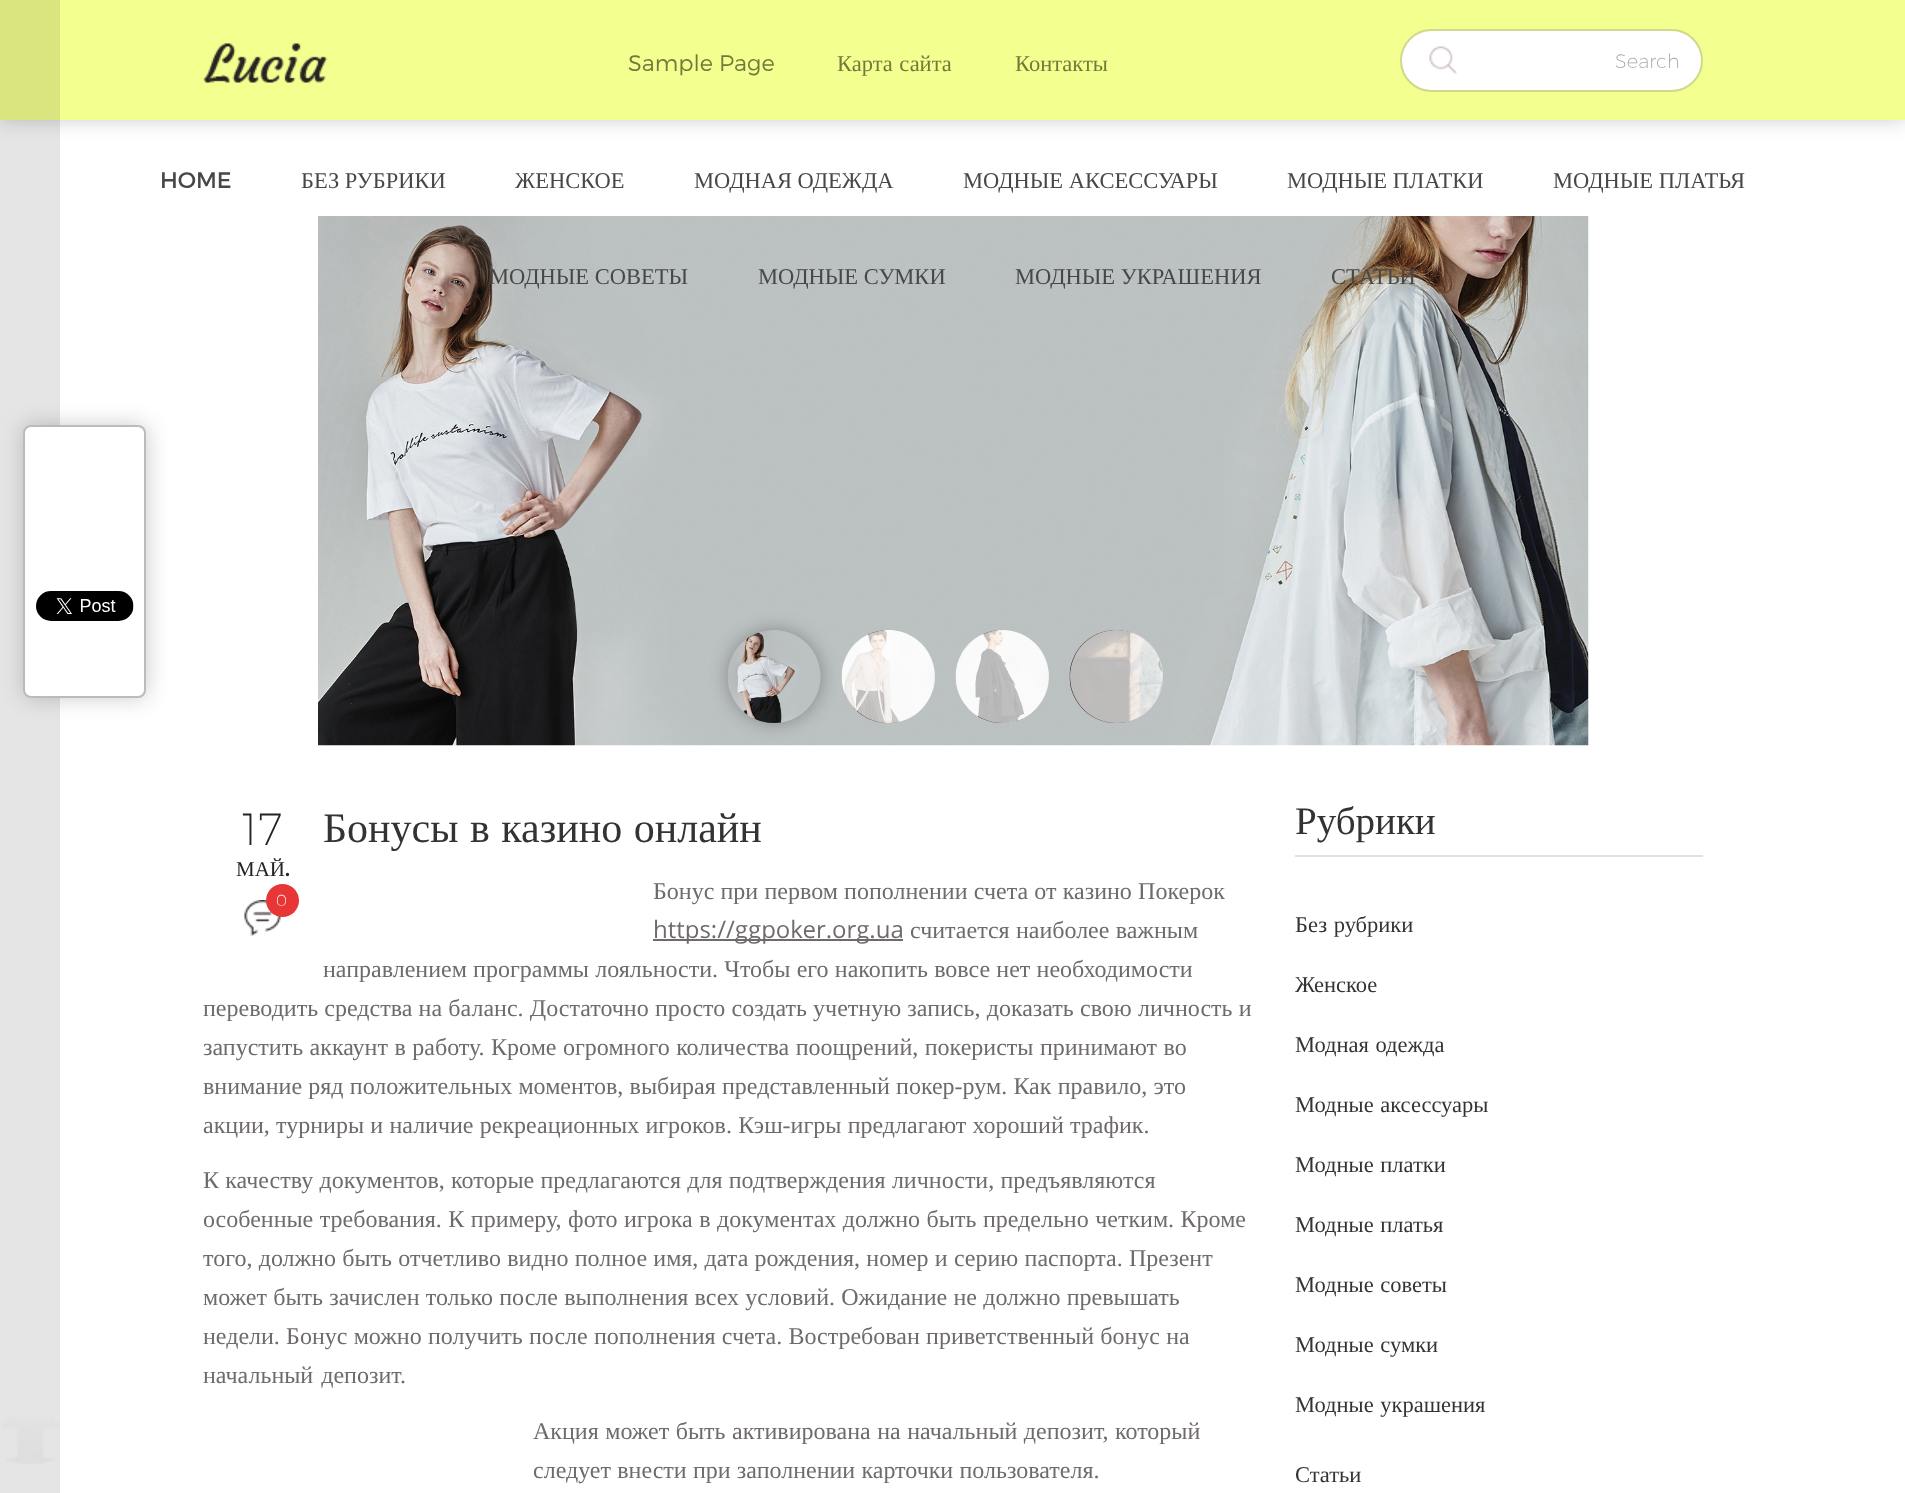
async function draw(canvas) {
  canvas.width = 1905
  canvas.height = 1493
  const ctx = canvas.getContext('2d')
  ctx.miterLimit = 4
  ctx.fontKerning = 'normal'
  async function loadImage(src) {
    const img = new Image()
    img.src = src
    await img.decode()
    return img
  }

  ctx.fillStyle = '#fff'
  ctx.fillRect(0, 0, 1905, 1493)
  ctx.fillStyle = '#00000033'
  ctx.filter = 'blur(10px)'
  ctx.beginPath()
  ctx.rect(0, 0, 1905, 120)
  ctx.fill()
  ctx.filter = 'none'
  ctx.fillStyle = '#f3ff8f'
  ctx.fillRect(0, 0, 1905, 120)
  ctx.fillStyle = '#0000001a'
  ctx.fillRect(0, 0, 60, 1493)
  ctx.drawImage(await loadImage('image0.png'), 2, 1417, 58, 47)
  ctx.drawImage(await loadImage('image1.png'), 203, 43, 125, 40)
  ctx.font = '300 22.5px Montserrat'
  ctx.fillStyle = '#73793d'
  ctx.fillText('Sample Page', 628, 71)
  ctx.wordSpacing = '1px'
  ctx.font = '22.5px Liberation Serif'
  ctx.fillText('Карта сайта', 837, 71)
  ctx.wordSpacing = '0px'
  ctx.fillText('Контакты', 1015, 71)
  ctx.fillStyle = '#fff'
  ctx.beginPath()
  ctx.roundRect(1401, 30, 301, 61, 30.5)
  ctx.fill()
  ctx.strokeStyle = '#d0d88c'
  ctx.lineWidth = 2
  ctx.stroke()
  ctx.drawImage(await loadImage('image2.png'), 1429, 46, 28, 28)
  ctx.font = '200 19.5px Montserrat'
  ctx.fillStyle = '#a3a3a3'
  ctx.fillText('Search', 1615, 68)
  ctx.font = '22.5px Montserrat'
  ctx.fillStyle = '#474747'
  ctx.fillText('HOME', 160, 188)
  ctx.font = '22.5px Liberation Serif'
  ctx.fillText('БЕЗ РУБРИКИ', 301, 188)
  ctx.fillText('ЖЕНСКОЕ', 515, 188)
  ctx.fillText('МОДНАЯ ОДЕЖДА', 694, 188)
  ctx.fillText('МОДНЫЕ АКСЕССУАРЫ', 963, 188)
  ctx.fillText('МОДНЫЕ ПЛАТКИ', 1287, 188)
  ctx.fillText('МОДНЫЕ ПЛАТЬЯ', 1553, 188)
  ctx.drawImage(await loadImage('image3.png'), 318, 216, 1271, 530)
  ctx.fillText('МОДНЫЕ СОВЕТЫ', 489, 284)
  ctx.fillText('МОДНЫЕ СУМКИ', 758, 284)
  ctx.fillText('МОДНЫЕ УКРАШЕНИЯ', 1015, 284)
  ctx.fillText('СТАТЬИ', 1331, 284)
  ctx.fillStyle = '#0000004d'
  ctx.filter = 'blur(9px)'
  ctx.beginPath()
  ctx.roundRect(728, 630, 93, 93, 46.5)
  ctx.fill()
  ctx.filter = 'none'
  ctx.drawImage(await loadImage('image4.png'), 728, 630, 93, 93)
  ctx.drawImage(await loadImage('image5.png'), 841, 630, 94, 93)
  ctx.fillStyle = '#ffffffb3'
  ctx.beginPath()
  ctx.arc(888.5, 676.5, 46.5, 0, 2 * Math.PI)
  ctx.fill()
  ctx.drawImage(await loadImage('image6.png'), 955, 630, 94, 93)
  ctx.beginPath()
  ctx.arc(1002.5, 676.5, 46.5, 0, 2 * Math.PI)
  ctx.fill()
  ctx.drawImage(await loadImage('image7.png'), 1069, 630, 94, 93)
  ctx.beginPath()
  ctx.arc(1116.5, 676.5, 46.5, 0, 2 * Math.PI)
  ctx.fill()
  ctx.fillStyle = '#00000033'
  ctx.filter = 'blur(11px)'
  ctx.beginPath()
  ctx.roundRect(24, 425, 123, 273, 8)
  ctx.fill()
  ctx.filter = 'none'
  ctx.fillStyle = '#fff'
  ctx.beginPath()
  ctx.roundRect(24, 426, 121, 271, 7)
  ctx.fill()
  ctx.strokeStyle = '#bbb'
  ctx.stroke()
  ctx.drawImage(await loadImage('image8.png'), 36, 591, 98, 30)
  ctx.font = '200 45px Montserrat'
  ctx.fillStyle = '#232323'
  ctx.fillText('17', 242, 845)
  ctx.font = '21px Liberation Serif'
  ctx.fillText('МАЙ', 236, 876)
  ctx.font = '600 21px Montserrat'
  ctx.fillText('.', 285, 876)
  ctx.drawImage(await loadImage('image9.png'), 244, 900, 37, 36)
  ctx.fillStyle = '#e83636'
  ctx.beginPath()
  ctx.arc(282.5, 900.5, 16.5, 0, 2 * Math.PI)
  ctx.fill()
  ctx.font = '200 16px Montserrat'
  ctx.fillStyle = '#fff'
  ctx.fillText('0', 276, 906)
  ctx.wordSpacing = '1px'
  ctx.font = '42px Liberation Serif'
  ctx.fillStyle = '#353232'
  ctx.fillText('Бонусы в казино онлайн', 323, 842)
  ctx.wordSpacing = '0.25px'
  ctx.font = '24px Liberation Serif'
  ctx.fillStyle = '#6f6b6b'
  ctx.fillText('Бонус при первом пополнении счета от казино Покерок', 653, 899)
  ctx.fillRect(653, 939, 250, 2)
  ctx.wordSpacing = '0px'
  ctx.font = '24px Open Sans'
  ctx.fillText('https://ggpoker.org.ua', 653, 938)
  ctx.wordSpacing = '0.25px'
  ctx.font = '24px Liberation Serif'
  ctx.fillText('считается наиболее важным', 910, 938)
  ctx.fillText('направлением программы лояльности. Чтобы его накопить вовсе нет необходимости', 323, 977)
  ctx.fillText('переводить средства на баланс. Достаточно просто создать учетную запись, доказать свою личность и', 203, 1016)
  ctx.wordSpacing = '0.5px'
  ctx.fillText('запустить аккаунт в работу. Кроме огромного количества поощрений, покеристы принимают во', 203, 1055)
  ctx.wordSpacing = '0.25px'
  ctx.fillText('внимание ряд положительных моментов, выбирая представленный покер-рум. Как правило, это', 203, 1094)
  ctx.fillText('акции, турниры и наличие рекреационных игроков. Кэш-игры предлагают хороший трафик.', 203, 1133)
  ctx.fillText('К качеству документов, которые предлагаются для подтверждения личности, предъявляются', 203, 1188)
  ctx.wordSpacing = '0.5px'
  ctx.fillText('особенные требования. К примеру, фото игрока в документах должно быть предельно четким. Кроме', 203, 1227)
  ctx.save()
  ctx.beginPath()
  ctx.rect(203, 801, 1054, 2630)
  ctx.clip()
  ctx.wordSpacing = '0.25px'
  ctx.fillText('того, должно быть отчетливо видно полное имя, дата рождения, номер и серию паспорта. Презент', 203, 1266)
  ctx.restore()
  ctx.wordSpacing = '0.25px'
  ctx.fillText('может быть зачислен только после выполнения всех условий. Ожидание не должно превышать', 203, 1305)
  ctx.fillText('недели. Бонус можно получить после пополнения счета. Востребован приветственный бонус на', 203, 1344)
  ctx.wordSpacing = '2px'
  ctx.fillText('начальный депозит.', 203, 1383)
  ctx.wordSpacing = '0.5px'
  ctx.fillText('Акция может быть активирована на начальный депозит, который', 533, 1439)
  ctx.wordSpacing = '0.25px'
  ctx.fillText('следует внести при заполнении карточки пользователя.', 533, 1478)
  ctx.fillStyle = '#e2e2e2'
  ctx.fillRect(1295, 855, 408, 2)
  ctx.wordSpacing = '0px'
  ctx.font = '39px Liberation Serif'
  ctx.fillStyle = '#353232'
  ctx.fillText('Рубрики', 1295, 834)
  ctx.wordSpacing = '1px'
  ctx.font = '22.5px Liberation Serif'
  ctx.fillText('Без рубрики', 1295, 932)
  ctx.wordSpacing = '0px'
  ctx.fillText('Женское', 1295, 992)
  ctx.wordSpacing = '1px'
  ctx.fillText('Модная одежда', 1295, 1052)
  ctx.fillText('Модные аксессуары', 1295, 1112)
  ctx.fillText('Модные платки', 1295, 1172)
  ctx.fillText('Модные платья', 1295, 1232)
  ctx.fillText('Модные советы', 1295, 1292)
  ctx.fillText('Модные сумки', 1295, 1352)
  ctx.fillText('Модные украшения', 1295, 1412)
  ctx.wordSpacing = '0px'
  ctx.fillText('Статьи', 1295, 1482)
}

draw(document.querySelector('canvas'))
